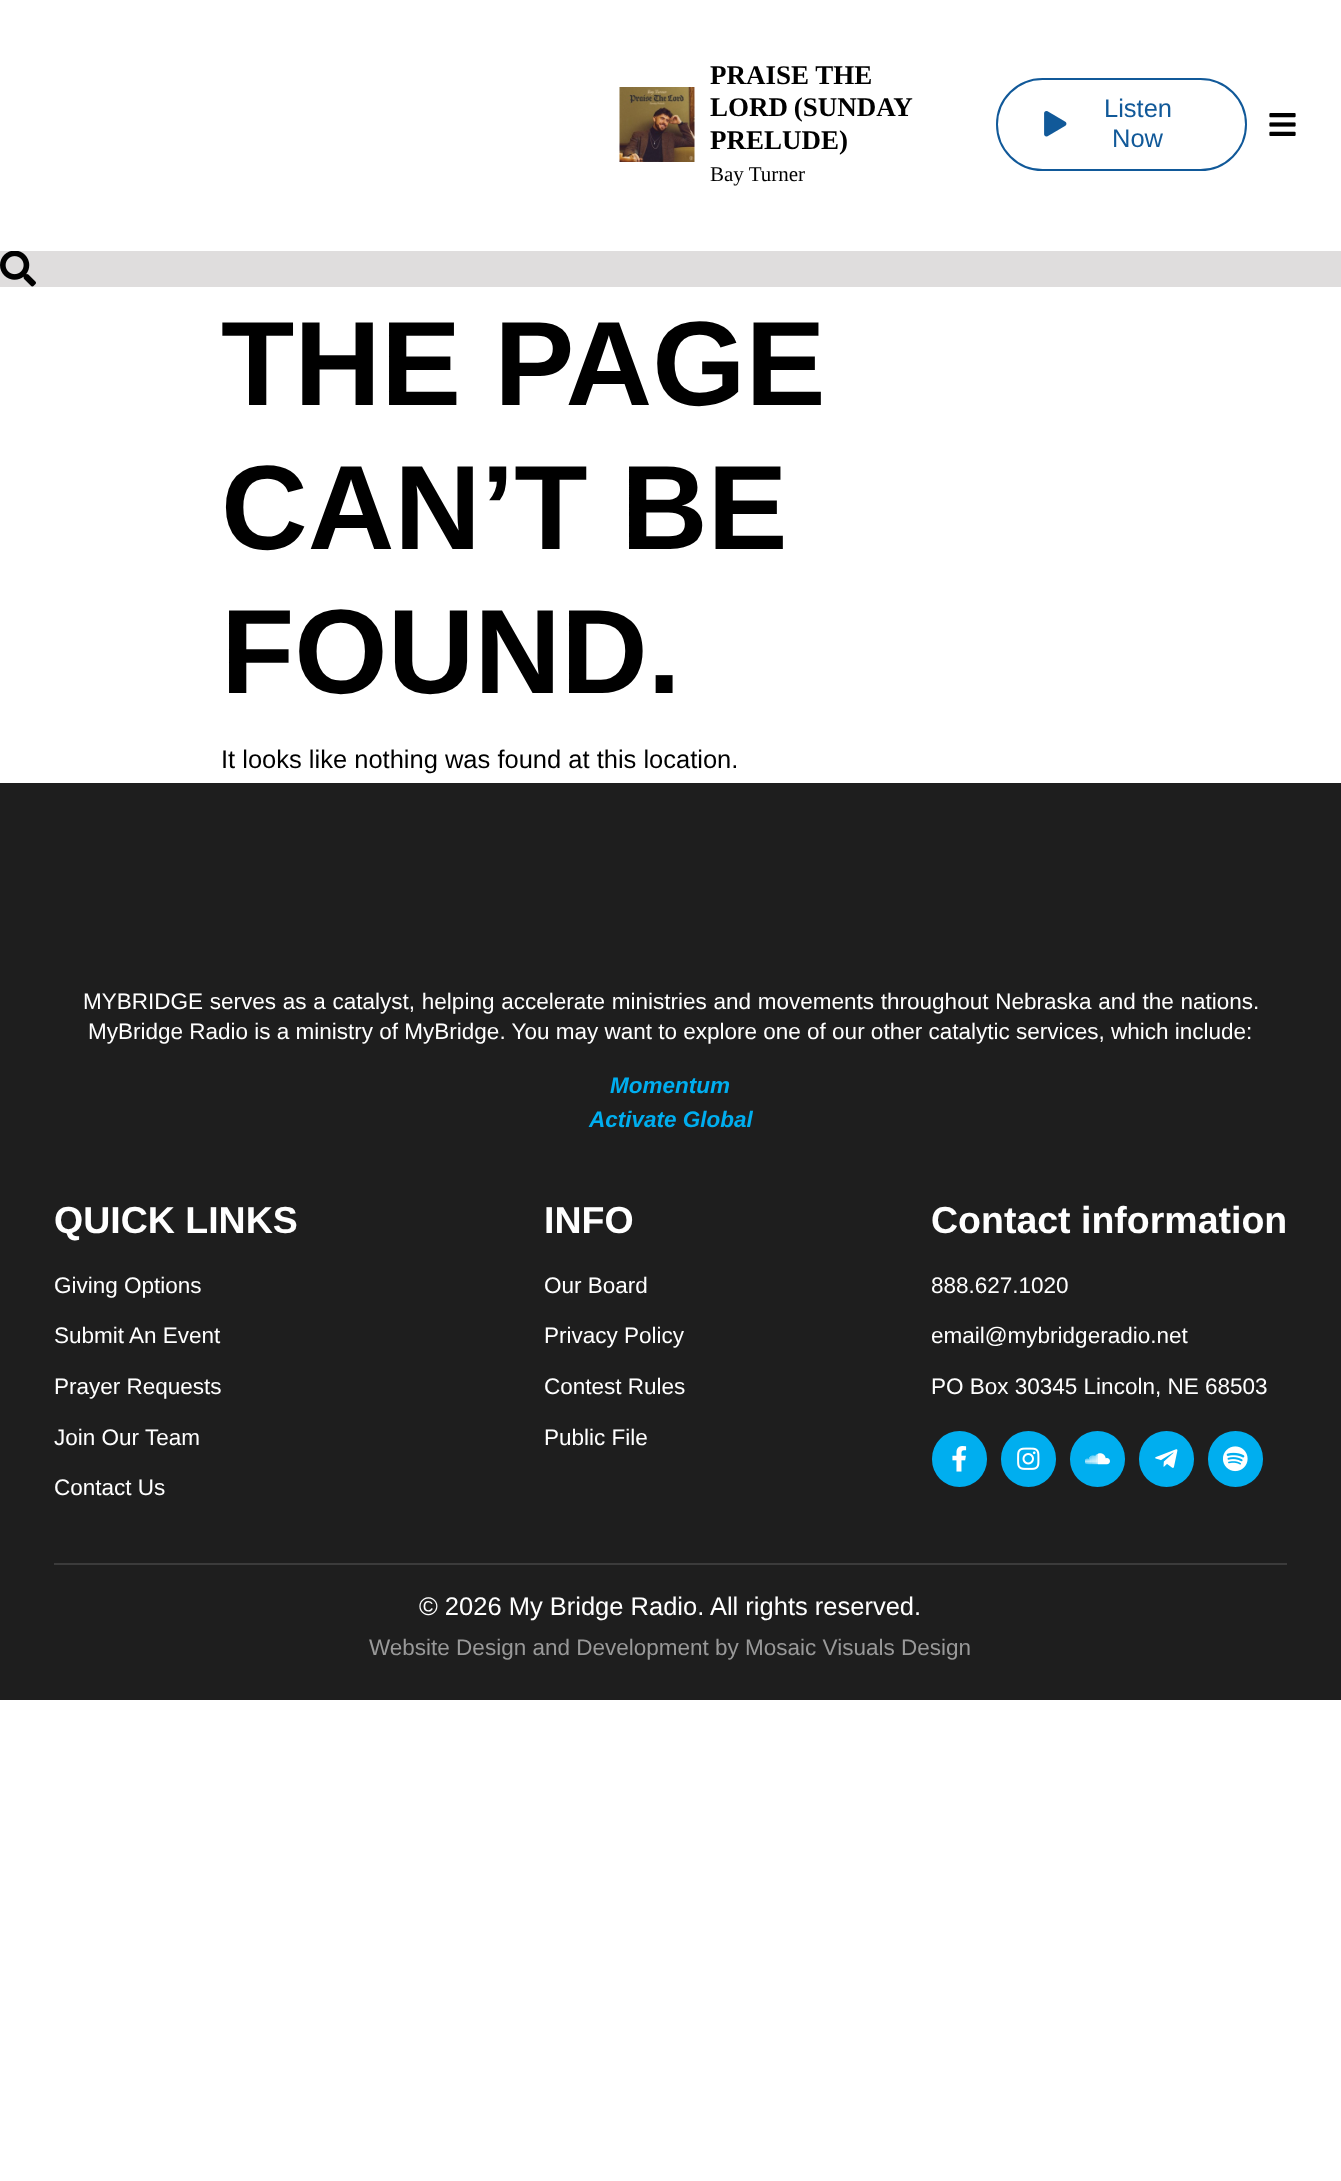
async function draw(canvas) {
  canvas.width = 1341
  canvas.height = 2181
  const ctx = canvas.getContext('2d')
  ctx.miterLimit = 4
  ctx.fontKerning = 'normal'
  async function loadImage(src) {
    const img = new Image()
    img.src = src
    await img.decode()
    return img
  }

  ctx.fillStyle = '#fff'
  ctx.fillRect(0, 0, 1341, 2181)
  ctx.drawImage(await loadImage('image0.png'), 619, 87, 76, 75)
  ctx.font = 'bold 27px Liberation Serif'
  ctx.fillStyle = '#000'
  ctx.fillText('PRAISE THE', 710, 84)
  ctx.wordSpacing = '-1px'
  ctx.fillText('LORD (SUNDAY', 710, 116)
  ctx.wordSpacing = '0px'
  ctx.fillText('PRELUDE)', 710, 149)
  ctx.font = '21px Liberation Serif'
  ctx.fillText('Bay Turner', 710, 181)
  ctx.beginPath()
  ctx.roundRect(997, 79, 249, 91, 45.5)
  ctx.strokeStyle = '#115999'
  ctx.lineWidth = 2
  ctx.stroke()
  ctx.drawImage(await loadImage('image1.png'), 1044, 111, 23, 26)
  ctx.font = '25.5px Liberation Sans'
  ctx.fillStyle = '#115999'
  ctx.fillText('Listen', 1104, 117)
  ctx.fillText('Now', 1112, 147)
  ctx.drawImage(await loadImage('image2.png'), 1269, 113, 27, 23)
  ctx.fillStyle = '#dfdddd'
  ctx.fillRect(0, 251, 1341, 36)
  ctx.drawImage(await loadImage('image3.png'), 0, 251, 36, 36)
  ctx.font = 'bold 120px Liberation Sans'
  ctx.fillStyle = '#000'
  ctx.fillText('THE PAGE', 221, 405)
  ctx.fillText('CAN’T BE', 221, 549)
  ctx.fillText('FOUND.', 221, 693)
  ctx.font = '25.5px Liberation Sans'
  ctx.fillText('It looks like nothing was found at this location.', 221, 768)
  ctx.fillStyle = '#1e1e1e'
  ctx.fillRect(0, 783, 1341, 917)
  ctx.wordSpacing = '0.5px'
  ctx.font = '22.5px Liberation Sans'
  ctx.fillStyle = '#fff'
  ctx.fillText('MYBRIDGE serves as a catalyst, helping accelerate ministries and movements throughout Nebraska and the nations.', 83, 1009)
  ctx.wordSpacing = '0px'
  ctx.fillText('MyBridge Radio is a ministry of MyBridge. You may want to explore one of our other catalytic services, which include:', 88, 1039)
  ctx.font = 'italic bold 22.5px Liberation Sans'
  ctx.fillStyle = '#00aeef'
  ctx.fillText('Momentum', 610, 1093)
  ctx.fillText('Activate Global', 589, 1127)
  ctx.font = 'bold 37.5px Liberation Sans'
  ctx.fillStyle = '#fff'
  ctx.fillText('QUICK LINKS', 54, 1233)
  ctx.font = '22.5px Liberation Sans'
  ctx.fillText('Giving Options', 54, 1293)
  ctx.fillText('Submit An Event', 54, 1343)
  ctx.fillText('Prayer Requests', 54, 1394)
  ctx.fillText('Join Our Team', 54, 1445)
  ctx.fillText('Contact Us', 54, 1495)
  ctx.font = 'bold 37.5px Liberation Sans'
  ctx.fillText('INFO', 544, 1233)
  ctx.font = '22.5px Liberation Sans'
  ctx.fillText('Our Board', 544, 1293)
  ctx.fillText('Privacy Policy', 544, 1343)
  ctx.fillText('Contest Rules', 544, 1394)
  ctx.fillText('Public File', 544, 1445)
  ctx.font = 'bold 37.5px Liberation Sans'
  ctx.fillText('Contact information', 931, 1233)
  ctx.font = '22.5px Liberation Sans'
  ctx.fillText('888.627.1020', 931, 1293)
  ctx.fillText('email@mybridgeradio.net', 931, 1343)
  ctx.fillText('PO Box 30345 Lincoln, NE 68503', 931, 1394)
  ctx.fillStyle = '#00aeef'
  ctx.beginPath()
  ctx.roundRect(932, 1431, 55, 56, 27.5)
  ctx.fill()
  ctx.drawImage(await loadImage('image4.png'), 952, 1446, 15, 26)
  ctx.beginPath()
  ctx.roundRect(1001, 1431, 55, 56, 27.5)
  ctx.fill()
  ctx.drawImage(await loadImage('image5.png'), 1017, 1447, 23, 23)
  ctx.beginPath()
  ctx.roundRect(1070, 1431, 55, 56, 27.5)
  ctx.fill()
  ctx.drawImage(await loadImage('image6.png'), 1085, 1453, 25, 12)
  ctx.beginPath()
  ctx.roundRect(1139, 1431, 55, 56, 27.5)
  ctx.fill()
  ctx.drawImage(await loadImage('image7.png'), 1155, 1449, 23, 19)
  ctx.beginPath()
  ctx.roundRect(1208, 1431, 55, 56, 27.5)
  ctx.fill()
  ctx.drawImage(await loadImage('image8.png'), 1223, 1446, 25, 26)
  ctx.fillStyle = '#3b3b3b'
  ctx.fillRect(54, 1563, 1233, 2)
  ctx.font = '25.5px Liberation Sans'
  ctx.fillStyle = '#fff'
  ctx.fillText('© 2026 My Bridge Radio. All rights reserved.', 419, 1615)
  ctx.font = '22.5px Liberation Sans'
  ctx.fillStyle = '#999'
  ctx.fillText('Website Design and Development by Mosaic Visuals Design', 369, 1655)
}

draw(document.querySelector('canvas'))
